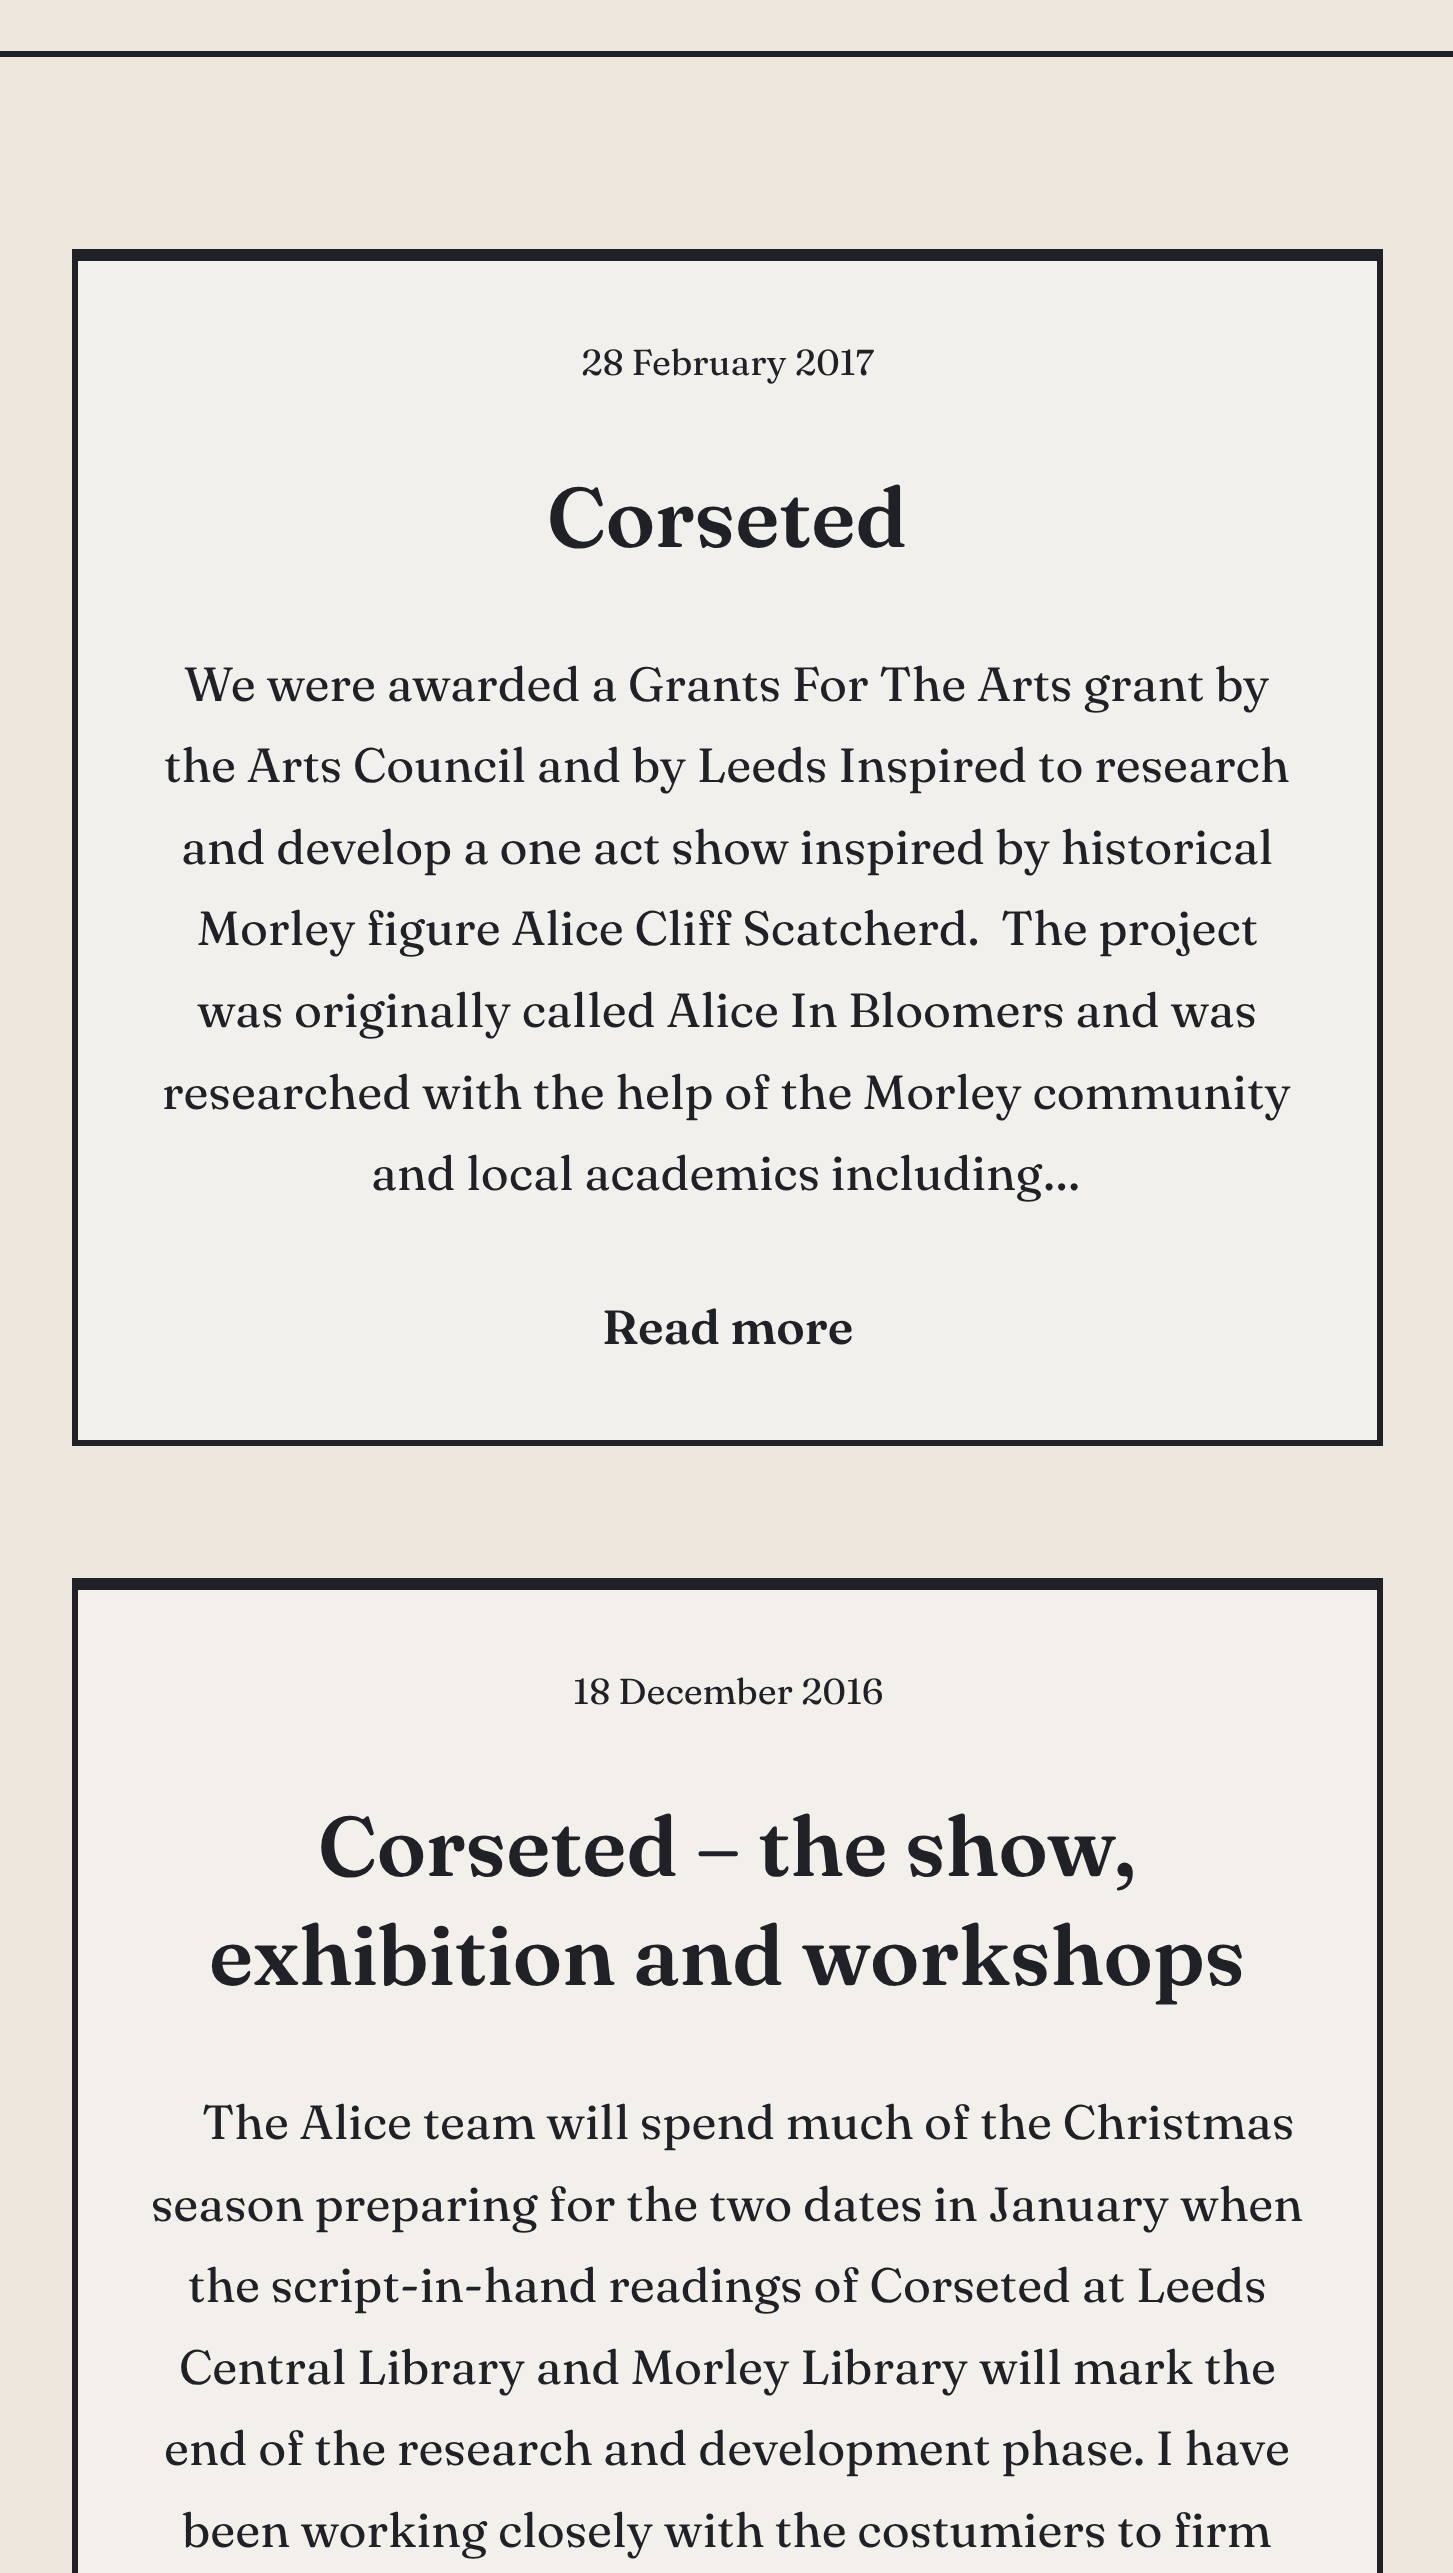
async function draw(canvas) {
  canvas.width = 1453
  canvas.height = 2573
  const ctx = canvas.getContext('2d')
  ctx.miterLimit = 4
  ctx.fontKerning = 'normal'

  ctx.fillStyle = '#ece6dc'
  ctx.fillRect(0, 0, 1453, 2573)
  ctx.fillStyle = '#1f2127'
  ctx.fillRect(0, 51, 1453, 6)
  ctx.fillStyle = '#f2f0ec'
  ctx.fillRect(78, 261, 1299, 1179)
  ctx.strokeStyle = '#1f2127'
  ctx.lineWidth = 6
  ctx.strokeRect(75, 252, 1305, 1191)
  ctx.fillStyle = '#1f2127'
  ctx.fillRect(78, 255, 1299, 6)
  ctx.font = '36px Fraunces'
  ctx.fillText('28 February 2017', 581, 375)
  ctx.font = '600 84px Fraunces'
  ctx.fillText('Corseted', 547, 547)
  ctx.font = '48px "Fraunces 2"'
  ctx.fillText('We were awarded a Grants For The Arts grant by', 184, 701)
  ctx.fillText('the Arts Council and by Leeds Inspired to research', 164, 782)
  ctx.fillText('and develop a one act show inspired by historical', 181, 864)
  ctx.fillText('Morley figure Alice Cliff Scatcherd.  The project', 197, 945)
  ctx.fillText('was originally called Alice In Bloomers and was', 197, 1027)
  ctx.fillText('researched with the help of the Morley community', 162, 1109)
  ctx.fillText('and local academics including…', 371, 1190)
  ctx.font = '600 48px "Fraunces 2"'
  ctx.fillText('Read more', 602, 1344)
  ctx.fillStyle = '#f3f0ec'
  ctx.fillRect(78, 1590, 1299, 983)
  ctx.strokeRect(75, 1581, 1305, 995)
  ctx.fillStyle = '#1f2127'
  ctx.fillRect(78, 1584, 1299, 6)
  ctx.font = '36px Fraunces'
  ctx.fillText('18 December 2016', 573, 1704)
  ctx.font = '600 84px Fraunces'
  ctx.fillText('Corseted – the show,', 318, 1876)
  ctx.fillText('exhibition and workshops', 209, 1985)
  ctx.font = '48px "Fraunces 2"'
  ctx.fillText('The Alice team will spend much of the Christmas', 202, 2139)
  ctx.fillText('season preparing for the two dates in January when', 151, 2221)
  ctx.fillText('the script-in-hand readings of Corseted at Leeds', 188, 2302)
  ctx.fillText('Central Library and Morley Library will mark the', 179, 2384)
  ctx.fillText('end of the research and development phase. I have', 164, 2465)
  ctx.fillText('been working closely with the costumiers to firm', 182, 2547)
}

draw(document.querySelector('canvas'))
